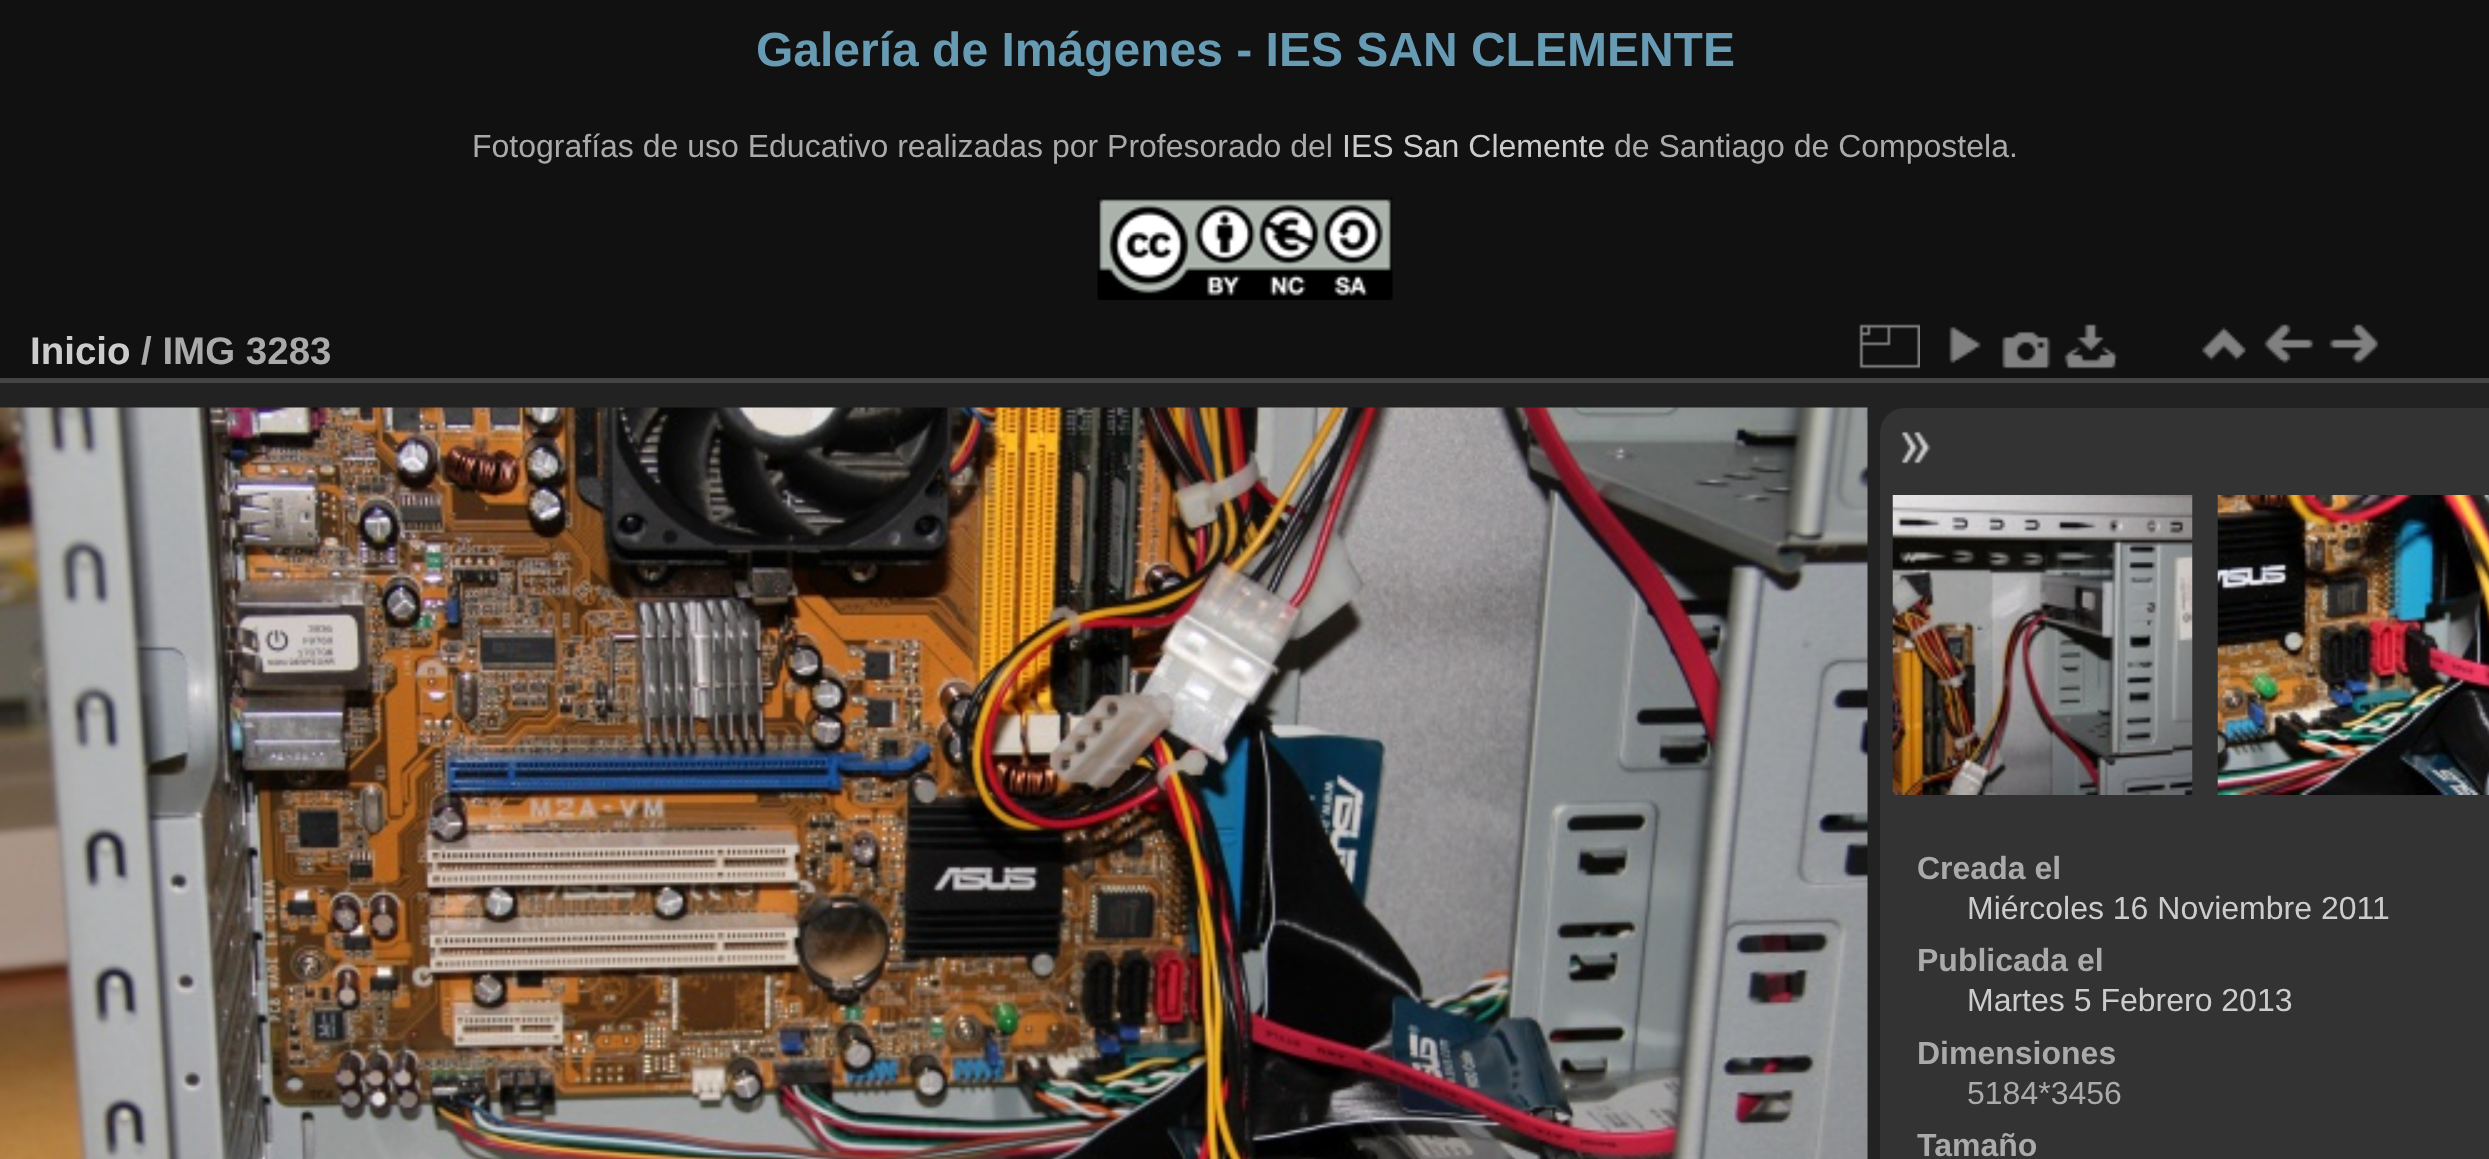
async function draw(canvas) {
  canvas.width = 2489
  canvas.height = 1159
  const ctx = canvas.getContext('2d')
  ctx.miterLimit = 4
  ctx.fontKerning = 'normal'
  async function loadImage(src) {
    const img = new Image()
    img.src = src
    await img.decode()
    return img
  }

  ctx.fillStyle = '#111'
  ctx.fillRect(0, 0, 2489, 1159)
  ctx.font = 'bold 48px Liberation Sans'
  ctx.fillStyle = '#679bb3'
  ctx.fillText('Galería de Imágenes - IES SAN CLEMENTE', 756, 66)
  ctx.font = '32px Liberation Sans'
  ctx.fillStyle = '#aaa'
  ctx.fillText('Fotografías de uso Educativo realizadas por Profesorado del', 472, 157)
  ctx.fillStyle = '#ccc'
  ctx.fillText('IES San Clemente', 1342, 157)
  ctx.fillStyle = '#aaa'
  ctx.fillText('de Santiago de Compostela.', 1614, 157)
  ctx.drawImage(await loadImage('image0.png'), 1097, 197, 296, 103)
  ctx.fillStyle = '#222'
  ctx.fillRect(0, 383, 2489, 776)
  ctx.fillStyle = '#444'
  ctx.fillRect(0, 378, 2489, 5)
  ctx.font = 'bold 38.5px Liberation Sans'
  ctx.fillStyle = '#ccc'
  ctx.fillText('Inicio', 30, 364)
  ctx.fillStyle = '#aaa'
  ctx.fillText('/ IMG 3283', 141, 364)
  ctx.drawImage(await loadImage('image1.png'), 1859, 324, 61, 45)
  ctx.drawImage(await loadImage('image2.png'), 1949, 326, 32, 38)
  ctx.drawImage(await loadImage('image3.png'), 2002, 331, 49, 38)
  ctx.drawImage(await loadImage('image4.png'), 2064, 324, 54, 45)
  ctx.drawImage(await loadImage('image5.png'), 2201, 327, 45, 34)
  ctx.drawImage(await loadImage('image6.png'), 2264, 324, 50, 40)
  ctx.drawImage(await loadImage('image7.png'), 2329, 324, 50, 40)
  ctx.drawImage(await loadImage('image8.png'), 0, 407, 1868, 752)
  ctx.fillStyle = '#333'
  ctx.beginPath()
  ctx.moveTo(1905, 408)
  ctx.lineTo(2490, 408)
  ctx.lineTo(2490, 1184)
  ctx.lineTo(1905, 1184)
  ctx.bezierCurveTo(1891, 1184, 1880, 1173, 1880, 1159)
  ctx.lineTo(1880, 433)
  ctx.bezierCurveTo(1880, 419, 1891, 408, 1905, 408)
  ctx.closePath()
  ctx.fill()
  ctx.drawImage(await loadImage('image9.png'), 1901, 431, 30, 33)
  ctx.drawImage(await loadImage('image10.png'), 1892, 495, 301, 300)
  ctx.drawImage(await loadImage('image11.png'), 2217, 495, 272, 300)
  ctx.font = 'bold 32px Liberation Sans'
  ctx.fillStyle = '#aaa'
  ctx.fillText('Creada el', 1917, 879)
  ctx.font = '32px Liberation Sans'
  ctx.fillStyle = '#ccc'
  ctx.fillText('Miércoles 16 Noviembre 2011', 1967, 919)
  ctx.font = 'bold 32px Liberation Sans'
  ctx.fillStyle = '#aaa'
  ctx.fillText('Publicada el', 1917, 971)
  ctx.font = '32px Liberation Sans'
  ctx.fillStyle = '#ccc'
  ctx.fillText('Martes 5 Febrero 2013', 1967, 1011)
  ctx.font = 'bold 32px Liberation Sans'
  ctx.fillStyle = '#aaa'
  ctx.fillText('Dimensiones', 1917, 1064)
  ctx.font = '32px Liberation Sans'
  ctx.fillText('5184*3456', 1967, 1104)
  ctx.font = 'bold 32px Liberation Sans'
  ctx.fillText('Tamaño', 1917, 1156)
}

draw(document.querySelector('canvas'))
